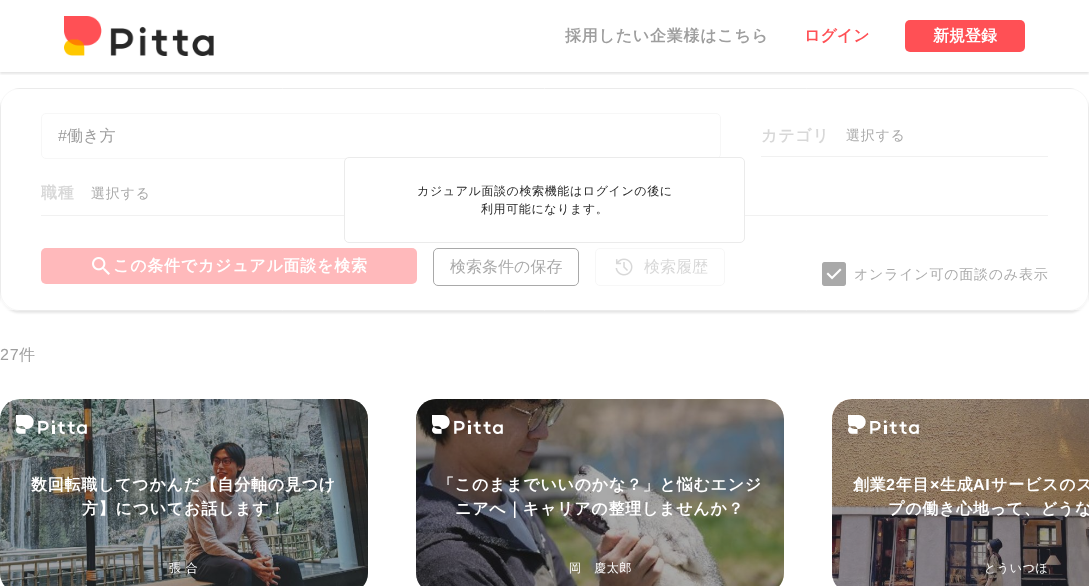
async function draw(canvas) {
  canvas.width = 1089
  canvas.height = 586
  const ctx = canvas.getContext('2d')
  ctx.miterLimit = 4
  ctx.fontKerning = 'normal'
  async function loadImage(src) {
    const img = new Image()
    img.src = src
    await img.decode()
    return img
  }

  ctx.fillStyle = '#fff'
  ctx.fillRect(0, 0, 1089, 586)
  ctx.save()
  ctx.beginPath()
  ctx.rect(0, 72, 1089, 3)
  ctx.clip()
  ctx.fillStyle = '#0000001a'
  ctx.filter = 'blur(1px)'
  ctx.beginPath()
  ctx.rect(0, 2, 1089, 72)
  ctx.fill()
  ctx.filter = 'none'
  ctx.restore()
  ctx.drawImage(await loadImage('image0.png'), 64, 16, 150, 40)
  ctx.letterSpacing = '0.75px'
  ctx.font = 'bold 16px WenQuanYi Zen Hei'
  ctx.fillStyle = '#9e9e9e'
  ctx.fillText('採用したい企業様はこちら', 565, 41)
  ctx.letterSpacing = '0px'
  ctx.fillStyle = '#ff5055'
  ctx.fillText('ログイン', 804, 41)
  ctx.beginPath()
  ctx.roundRect(905, 20, 120, 32, 5)
  ctx.fill()
  ctx.fillStyle = '#fff'
  ctx.fillText('新規登録', 933, 41)
  ctx.save()
  ctx.beginPath()
  ctx.moveTo(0, 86)
  ctx.lineTo(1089, 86)
  ctx.lineTo(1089, 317)
  ctx.lineTo(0, 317)
  ctx.closePath()
  ctx.moveTo(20, 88)
  ctx.lineTo(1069, 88)
  ctx.bezierCurveTo(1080, 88, 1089, 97, 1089, 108)
  ctx.lineTo(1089, 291)
  ctx.bezierCurveTo(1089, 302, 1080, 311, 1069, 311)
  ctx.lineTo(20, 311)
  ctx.bezierCurveTo(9, 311, 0, 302, 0, 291)
  ctx.lineTo(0, 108)
  ctx.bezierCurveTo(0, 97, 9, 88, 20, 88)
  ctx.closePath()
  ctx.clip('evenodd')
  ctx.fillStyle = '#0000001a'
  ctx.filter = 'blur(1px)'
  ctx.beginPath()
  ctx.roundRect(0, 90, 1089, 223, 20)
  ctx.fill()
  ctx.filter = 'none'
  ctx.restore()
  ctx.beginPath()
  ctx.roundRect(0.5, 88.5, 1088, 222, 19.5)
  ctx.strokeStyle = '#ebebeb'
  ctx.stroke()
  ctx.beginPath()
  ctx.roundRect(41.5, 113.5, 679, 45, 4.5)
  ctx.stroke()
  ctx.font = '16px Liberation Sans'
  ctx.fillStyle = '#000'
  ctx.fillText('#', 58, 141)
  ctx.font = '500 16px WenQuanYi Zen Hei'
  ctx.fillText('働き方', 67, 141)
  ctx.fillStyle = '#dcdcdc'
  ctx.fillRect(761, 156, 287, 1)
  ctx.letterSpacing = '0.75px'
  ctx.font = 'bold 16px WenQuanYi Zen Hei'
  ctx.fillStyle = '#9e9e9e'
  ctx.fillText('カテゴリ', 761, 141)
  ctx.font = '500 14px WenQuanYi Zen Hei'
  ctx.fillStyle = '#282828'
  ctx.fillText('選択する', 846, 140)
  ctx.fillStyle = '#dcdcdc'
  ctx.fillRect(41, 215, 1007, 1)
  ctx.font = 'bold 16px WenQuanYi Zen Hei'
  ctx.fillStyle = '#9e9e9e'
  ctx.fillText('職種', 41, 198)
  ctx.font = '500 14px WenQuanYi Zen Hei'
  ctx.fillStyle = '#282828'
  ctx.fillText('選択する', 91, 198)
  ctx.fillStyle = '#ff5055'
  ctx.beginPath()
  ctx.roundRect(41, 248, 376, 36, 5)
  ctx.fill()
  ctx.drawImage(await loadImage('image1.png'), 92, 257, 18, 18)
  ctx.font = 'bold 16px WenQuanYi Zen Hei'
  ctx.fillStyle = '#fff'
  ctx.fillText('この条件でカジュアル面談を検索', 113, 271)
  ctx.beginPath()
  ctx.roundRect(433.5, 248.5, 145, 37, 4.5)
  ctx.strokeStyle = '#282828'
  ctx.stroke()
  ctx.letterSpacing = '0px'
  ctx.font = '500 16px WenQuanYi Zen Hei'
  ctx.fillStyle = '#282828'
  ctx.fillText('検索条件の保存', 450, 272)
  ctx.beginPath()
  ctx.roundRect(595.5, 248.5, 129, 37, 4.5)
  ctx.strokeStyle = '#ebebeb'
  ctx.stroke()
  ctx.drawImage(await loadImage('image2.png'), 615, 258, 18, 18)
  ctx.fillStyle = '#9e9e9e'
  ctx.fillText('検索履歴', 644, 272)
  ctx.drawImage(await loadImage('image3.png'), 822, 262, 24, 24)
  ctx.drawImage(await loadImage('image4.png'), 822, 262, 24, 24)
  ctx.letterSpacing = '0.75px'
  ctx.font = '500 14px WenQuanYi Zen Hei'
  ctx.fillStyle = '#282828'
  ctx.fillText('オンライン可の面談のみ表示', 854, 279)
  ctx.fillStyle = '#ffffff99'
  ctx.fillRect(1, 89, 1087, 221)
  ctx.fillStyle = '#fff'
  ctx.beginPath()
  ctx.roundRect(344.5, 157.5, 400, 85, 4.5)
  ctx.fill()
  ctx.stroke()
  ctx.letterSpacing = '0.6px'
  ctx.font = '500 12px WenQuanYi Zen Hei'
  ctx.fillStyle = '#282828'
  ctx.fillText('カジュアル面談の検索機能はログインの後に', 417, 195)
  ctx.fillText('利用可能になります。', 481, 213)
  ctx.letterSpacing = '0.75px'
  ctx.font = '16px Liberation Sans'
  ctx.fillStyle = '#9e9e9e'
  ctx.fillText('27', 0, 360)
  ctx.font = '500 16px WenQuanYi Zen Hei'
  ctx.fillText('件', 19, 360)
  ctx.drawImage(await loadImage('image5.png'), 0, 399, 368, 187)
  ctx.save()
  ctx.beginPath()
  ctx.roundRect(0, 399, 368, 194, 20)
  ctx.clip()
  ctx.fillStyle = '#28282866'
  ctx.beginPath()
  ctx.roundRect(0, 399, 368, 187, [20, 20, 0, 0])
  ctx.fill()
  ctx.restore()
  ctx.drawImage(await loadImage('image6.png'), 16, 415, 71, 19)
  ctx.font = 'bold 16px WenQuanYi Zen Hei'
  ctx.fillStyle = '#fff'
  ctx.fillText('数回転職してつかんだ【自分軸の見つけ', 31, 490)
  ctx.fillText('方】についてお話します！', 82, 514)
  ctx.letterSpacing = '0.6px'
  ctx.font = '500 12px WenQuanYi Zen Hei'
  ctx.fillText('張 合', 169, 572)
  ctx.drawImage(await loadImage('image7.png'), 416, 399, 368, 187)
  ctx.save()
  ctx.beginPath()
  ctx.roundRect(416, 399, 368, 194, 20)
  ctx.clip()
  ctx.fillStyle = '#28282866'
  ctx.beginPath()
  ctx.roundRect(416, 399, 368, 187, [20, 20, 0, 0])
  ctx.fill()
  ctx.restore()
  ctx.drawImage(await loadImage('image8.png'), 432, 415, 71, 19)
  ctx.letterSpacing = '0.75px'
  ctx.font = 'bold 16px WenQuanYi Zen Hei'
  ctx.fillText('「このままでいいのかな？」と悩むエンジ', 438, 490)
  ctx.fillText('ニアへ｜キャリアの整理しませんか？', 455, 514)
  ctx.letterSpacing = '0.6px'
  ctx.font = '500 12px WenQuanYi Zen Hei'
  ctx.fillText('岡　慶太郎', 569, 572)
  ctx.drawImage(await loadImage('image9.png'), 832, 399, 257, 187)
  ctx.save()
  ctx.beginPath()
  ctx.roundRect(832, 399, 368, 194, 20)
  ctx.clip()
  ctx.fillStyle = '#28282866'
  ctx.beginPath()
  ctx.roundRect(832, 399, 257, 187, [20, 0, 0, 0])
  ctx.fill()
  ctx.restore()
  ctx.drawImage(await loadImage('image10.png'), 848, 415, 71, 19)
  ctx.letterSpacing = '0.75px'
  ctx.font = 'bold 16px WenQuanYi Zen Hei'
  ctx.fillText('創業', 853, 490)
  ctx.font = 'bold 16px Liberation Sans'
  ctx.fillText('2', 886, 490)
  ctx.font = 'bold 16px WenQuanYi Zen Hei'
  ctx.fillText('年目', 896, 490)
  ctx.font = 'bold 16px Liberation Sans'
  ctx.fillText('×', 930, 490)
  ctx.font = 'bold 16px WenQuanYi Zen Hei'
  ctx.fillText('生成', 940, 490)
  ctx.font = 'bold 16px Liberation Sans'
  ctx.fillText('AI', 973, 490)
  ctx.font = 'bold 16px WenQuanYi Zen Hei'
  ctx.fillText('サービスのス', 991, 490)
  ctx.fillText('プの働き心地って、どうな', 888, 514)
  ctx.letterSpacing = '0.6px'
  ctx.font = '500 12px WenQuanYi Zen Hei'
  ctx.fillText('とういつほ', 984, 572)
}

draw(document.querySelector('canvas'))
